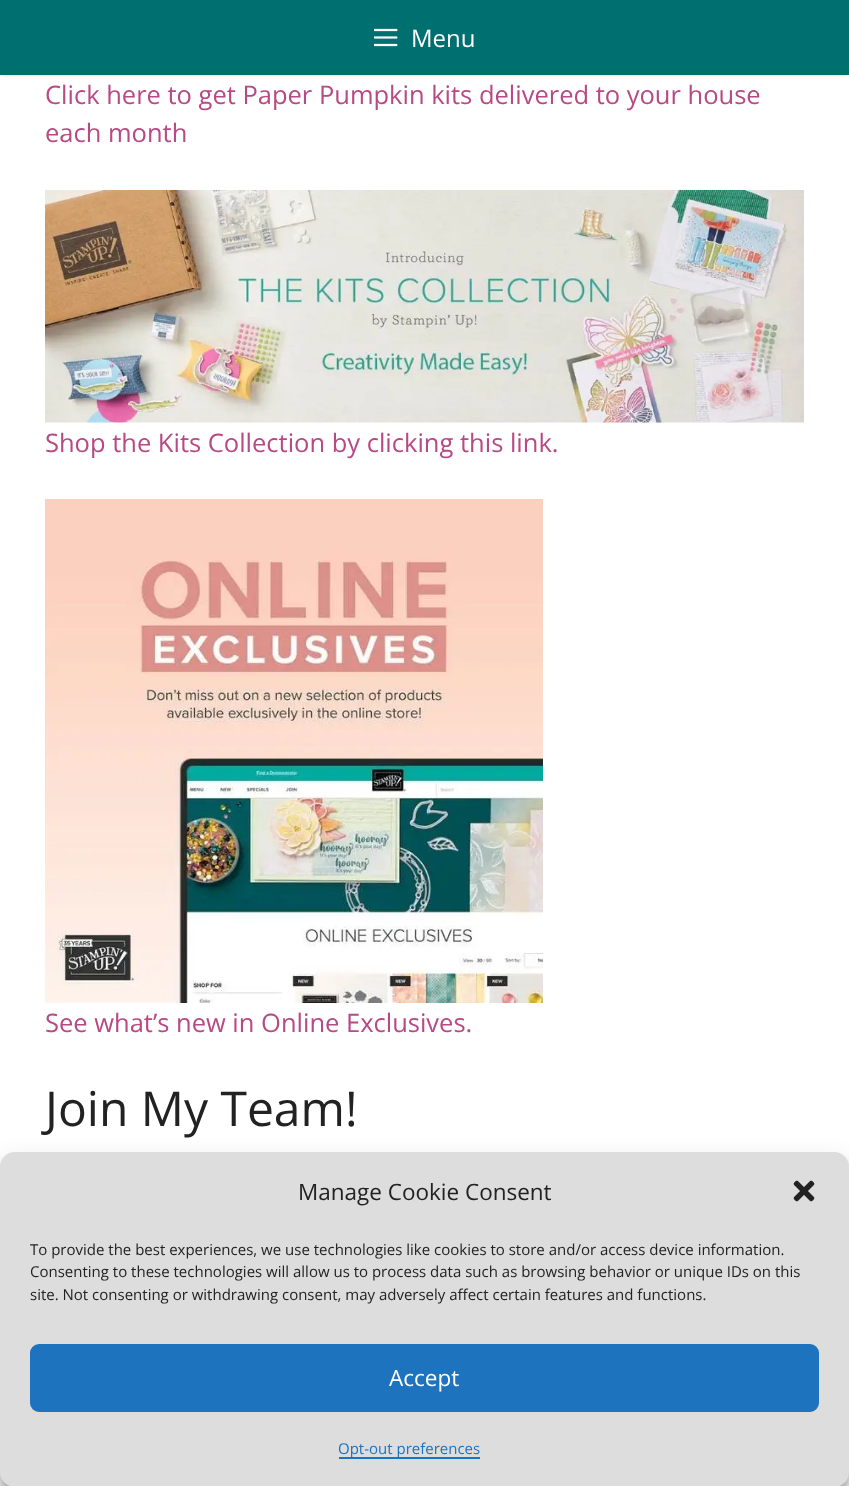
async function draw(canvas) {
  canvas.width = 849
  canvas.height = 1486
  const ctx = canvas.getContext('2d')
  ctx.miterLimit = 4
  ctx.fontKerning = 'normal'
  async function loadImage(src) {
    const img = new Image()
    img.src = src
    await img.decode()
    return img
  }

  ctx.fillStyle = '#fff'
  ctx.fillRect(0, 0, 849, 1486)
  ctx.fillStyle = '#00000033'
  ctx.filter = 'blur(1.5px)'
  ctx.beginPath()
  ctx.rect(3, 6, 843, 69)
  ctx.fill()
  ctx.filter = 'none'
  ctx.fillStyle = '#006f70'
  ctx.fillRect(0, 0, 849, 75)
  ctx.drawImage(await loadImage('image0.png'), 374, 28, 24, 19)
  ctx.font = '24px Open Sans'
  ctx.fillStyle = '#fff'
  ctx.fillText('Menu', 411, 47)
  ctx.font = '25.5px Open Sans'
  ctx.fillStyle = '#b74984'
  ctx.fillText('Click here to get Paper Pumpkin kits delivered to your house', 45, 104)
  ctx.fillText('each month', 45, 142)
  ctx.drawImage(await loadImage('image1.png'), 45, 190, 759, 233)
  ctx.fillText('Shop the Kits Collection by clicking this link.', 45, 452)
  ctx.drawImage(await loadImage('image2.png'), 45, 499, 498, 504)
  ctx.fillText('See what’s new in Online Exclusives.', 45, 1032)
  ctx.font = '48px Open Sans'
  ctx.fillStyle = '#222'
  ctx.fillText('Join My Team!', 45, 1126)
  ctx.fillStyle = '#0000003b'
  ctx.filter = 'blur(4.5px)'
  ctx.beginPath()
  ctx.roundRect(0, 1161, 849, 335, 15)
  ctx.fill()
  ctx.filter = 'none'
  ctx.fillStyle = '#00000030'
  ctx.filter = 'blur(15px)'
  ctx.beginPath()
  ctx.roundRect(0, 1167, 849, 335, 15)
  ctx.fill()
  ctx.filter = 'none'
  ctx.fillStyle = '#ddd'
  ctx.beginPath()
  ctx.roundRect(0, 1152, 849, 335, 15)
  ctx.fill()
  ctx.font = '22.5px Open Sans'
  ctx.fillStyle = '#222'
  ctx.fillText('Manage Cookie Consent', 298, 1200)
  ctx.drawImage(await loadImage('image3.png'), 793, 1180, 22, 22)
  ctx.font = '15px Open Sans'
  ctx.fillText('To provide the best experiences, we use technologies like cookies to store and/or access device information.', 30, 1255)
  ctx.fillText('Consenting to these technologies will allow us to process data such as browsing behavior or unique IDs on this', 30, 1277)
  ctx.fillText('site. Not consenting or withdrawing consent, may adversely affect certain features and functions.', 30, 1300)
  ctx.fillStyle = '#1e73be'
  ctx.beginPath()
  ctx.roundRect(31, 1345, 787, 66, 8)
  ctx.fill()
  ctx.strokeStyle = '#1e73be'
  ctx.lineWidth = 2
  ctx.stroke()
  ctx.font = '22.5px Open Sans'
  ctx.fillStyle = '#fff'
  ctx.fillText('Accept', 389, 1386)
  ctx.fillStyle = '#1e73be'
  ctx.fillRect(339, 1457, 141, 2)
  ctx.font = '15px Open Sans'
  ctx.fillText('Opt-out preferences', 338, 1454)
}

draw(document.querySelector('canvas'))
